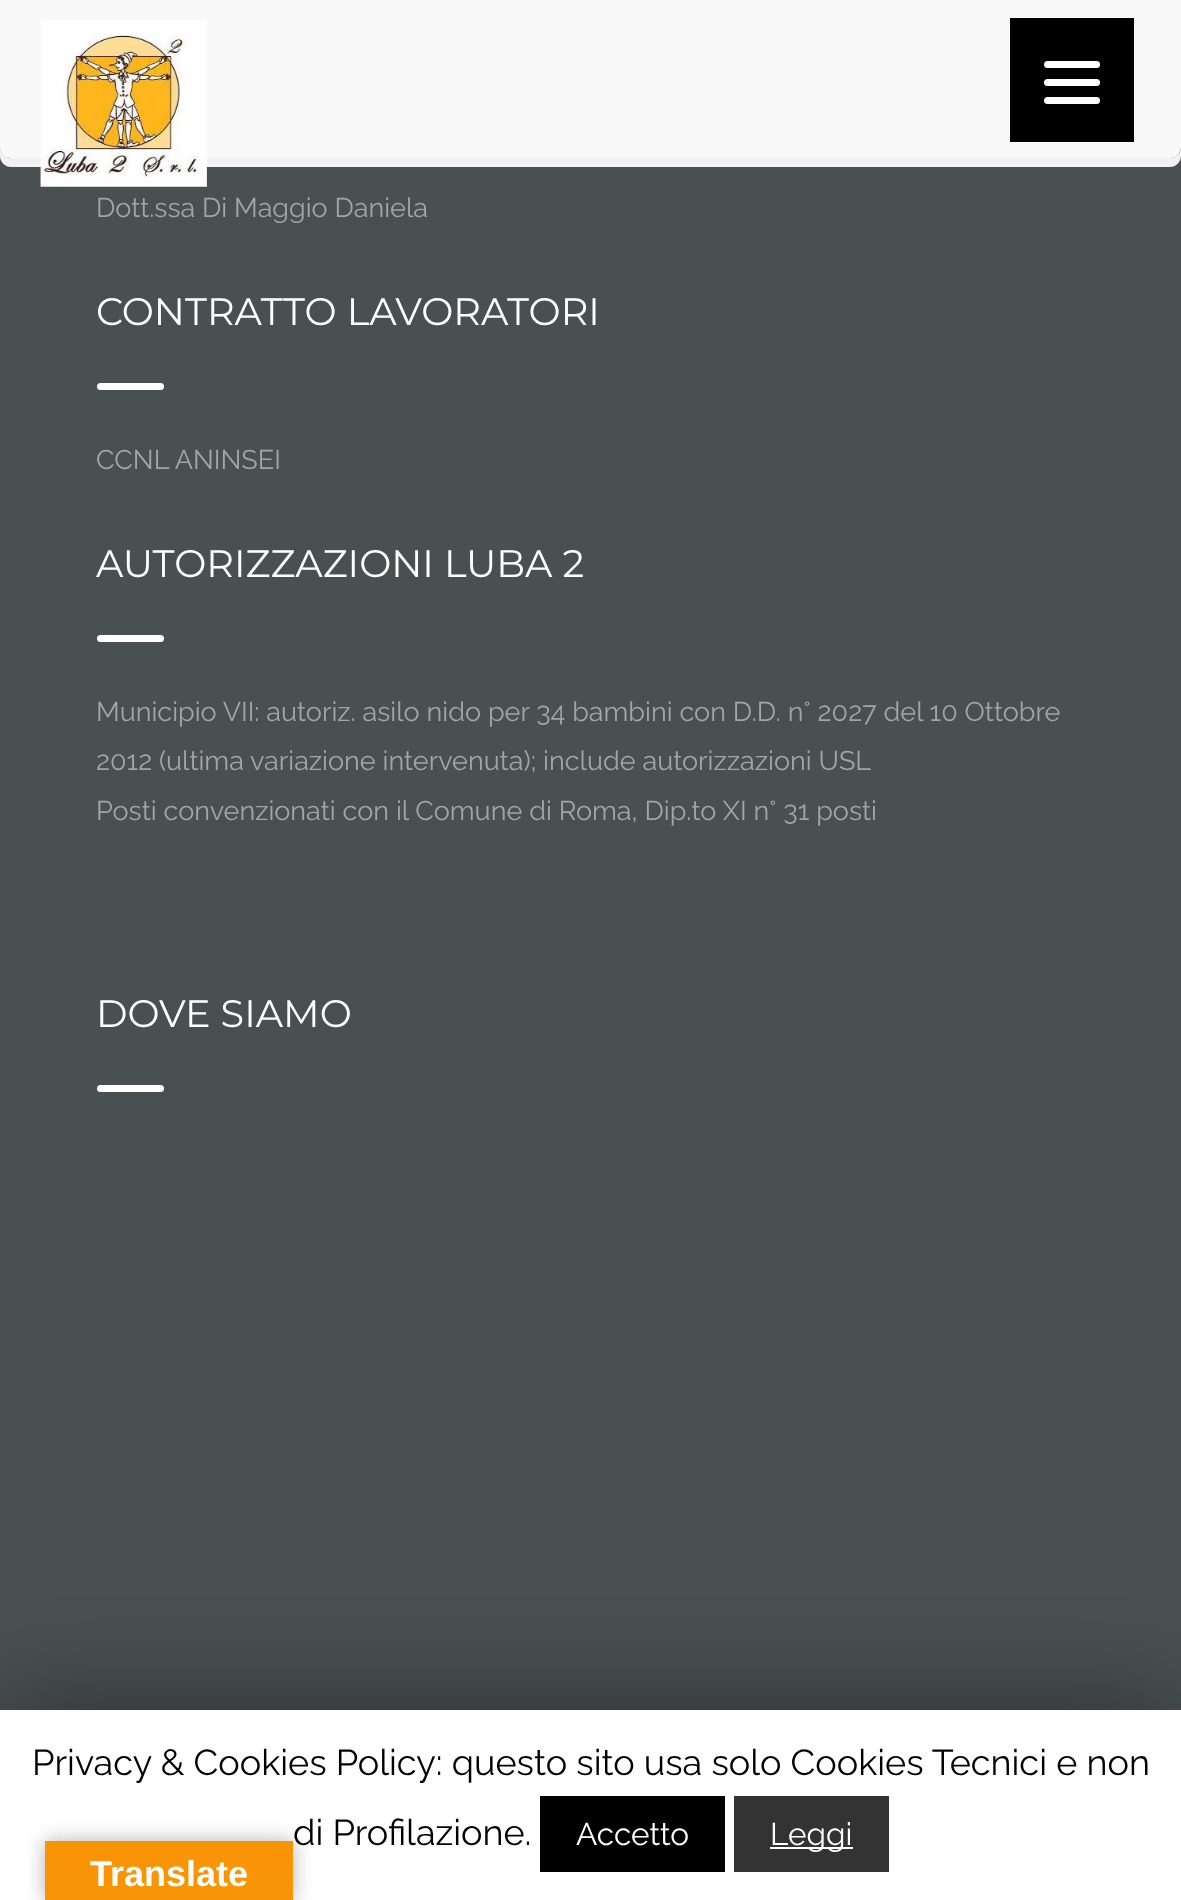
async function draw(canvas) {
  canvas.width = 1181
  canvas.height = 1900
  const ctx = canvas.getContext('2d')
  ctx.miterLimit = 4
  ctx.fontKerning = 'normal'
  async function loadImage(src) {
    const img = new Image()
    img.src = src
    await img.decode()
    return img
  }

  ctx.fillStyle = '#495052'
  ctx.fillRect(0, 0, 1181, 1900)
  ctx.fillStyle = '#f1f1f1'
  ctx.beginPath()
  ctx.moveTo(0, 146)
  ctx.lineTo(0, 156)
  ctx.bezierCurveTo(0, 162, 5, 167, 11, 167)
  ctx.lineTo(1170, 167)
  ctx.bezierCurveTo(1176, 167, 1181, 162, 1181, 156)
  ctx.lineTo(1181, 149)
  ctx.bezierCurveTo(1180, 154, 1175, 158, 1170, 158)
  ctx.lineTo(11, 158)
  ctx.bezierCurveTo(5, 158, 0, 152, 0, 146)
  ctx.closePath()
  ctx.fill()
  ctx.fillStyle = '#f9f9f9'
  ctx.beginPath()
  ctx.roundRect(0, 0, 1181, 158, [0, 0, 11, 11])
  ctx.fill()
  ctx.fillStyle = '#000'
  ctx.fillRect(1010, 18, 124, 124)
  ctx.fillStyle = '#fff'
  ctx.beginPath()
  ctx.roundRect(1044, 79, 56, 7, 3.5)
  ctx.fill()
  ctx.beginPath()
  ctx.roundRect(1044, 61, 56, 7, 3.5)
  ctx.fill()
  ctx.beginPath()
  ctx.roundRect(1044, 97, 56, 7, 3.5)
  ctx.fill()
  ctx.drawImage(await loadImage('image0.png'), 40, 20, 167, 167)
  ctx.font = '100 27px Raleway'
  ctx.fillStyle = '#a4a4a4'
  ctx.fillText('Dott.ssa Di Maggio Daniela', 96, 217)
  ctx.font = '100 38.25px Montserrat'
  ctx.fillStyle = '#fff'
  ctx.fillText('CONTRATTO LAVORATORI', 96, 325)
  ctx.beginPath()
  ctx.roundRect(97, 383, 67, 7, 3.5)
  ctx.fill()
  ctx.font = '100 27px Raleway'
  ctx.fillStyle = '#a4a4a4'
  ctx.fillText('CCNL ANINSEI', 96, 469)
  ctx.font = '100 38.25px Montserrat'
  ctx.fillStyle = '#fff'
  ctx.fillText('AUTORIZZAZIONI LUBA 2', 96, 577)
  ctx.beginPath()
  ctx.roundRect(97, 635, 67, 7, 3.5)
  ctx.fill()
  ctx.font = '100 27px Raleway'
  ctx.fillStyle = '#a4a4a4'
  ctx.fillText('Municipio VII: autoriz. asilo nido per 34 bambini con D.D. n° 2027 del 10 Ottobre', 96, 721)
  ctx.fillText('2012 (ultima variazione intervenuta); include autorizzazioni USL', 96, 770)
  ctx.fillText('Posti convenzionati con il Comune di Roma, Dip.to XI n° 31 posti', 96, 820)
  ctx.font = '100 38.25px Montserrat'
  ctx.fillStyle = '#fff'
  ctx.fillText('DOVE SIAMO', 96, 1027)
  ctx.beginPath()
  ctx.roundRect(97, 1085, 67, 7, 3.5)
  ctx.fill()
  ctx.fillStyle = '#00000080'
  ctx.filter = 'blur(56px)'
  ctx.beginPath()
  ctx.rect(0, 1721, 1181, 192)
  ctx.fill()
  ctx.filter = 'none'
  ctx.fillStyle = '#fff'
  ctx.fillRect(0, 1710, 1181, 190)
  ctx.font = '100 36px Raleway'
  ctx.fillStyle = '#000'
  ctx.fillText('Privacy & Cookies Policy: questo sito usa solo Cookies Tecnici e non', 32, 1775)
  ctx.fillText('di Profilazione.', 293, 1845)
  ctx.fillRect(540, 1796, 185, 76)
  ctx.font = '100 31.5px Raleway'
  ctx.fillStyle = '#fff'
  ctx.fillText('Accetto', 576, 1845)
  ctx.fillStyle = '#333'
  ctx.fillRect(734, 1796, 155, 76)
  ctx.fillStyle = '#fff'
  ctx.fillRect(770, 1847, 83, 2)
  ctx.fillText('Leggi', 770, 1845)
  ctx.fillStyle = '#0000004d'
  ctx.filter = 'blur(10px)'
  ctx.beginPath()
  ctx.rect(45, 1841, 248, 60)
  ctx.fill()
  ctx.filter = 'none'
  ctx.fillStyle = '#f89406'
  ctx.fillRect(45, 1841, 248, 59)
  ctx.font = 'bold 36px Liberation Sans'
  ctx.fillStyle = '#fff'
  ctx.fillText('Translate', 90, 1886)
}

draw(document.querySelector('canvas'))
